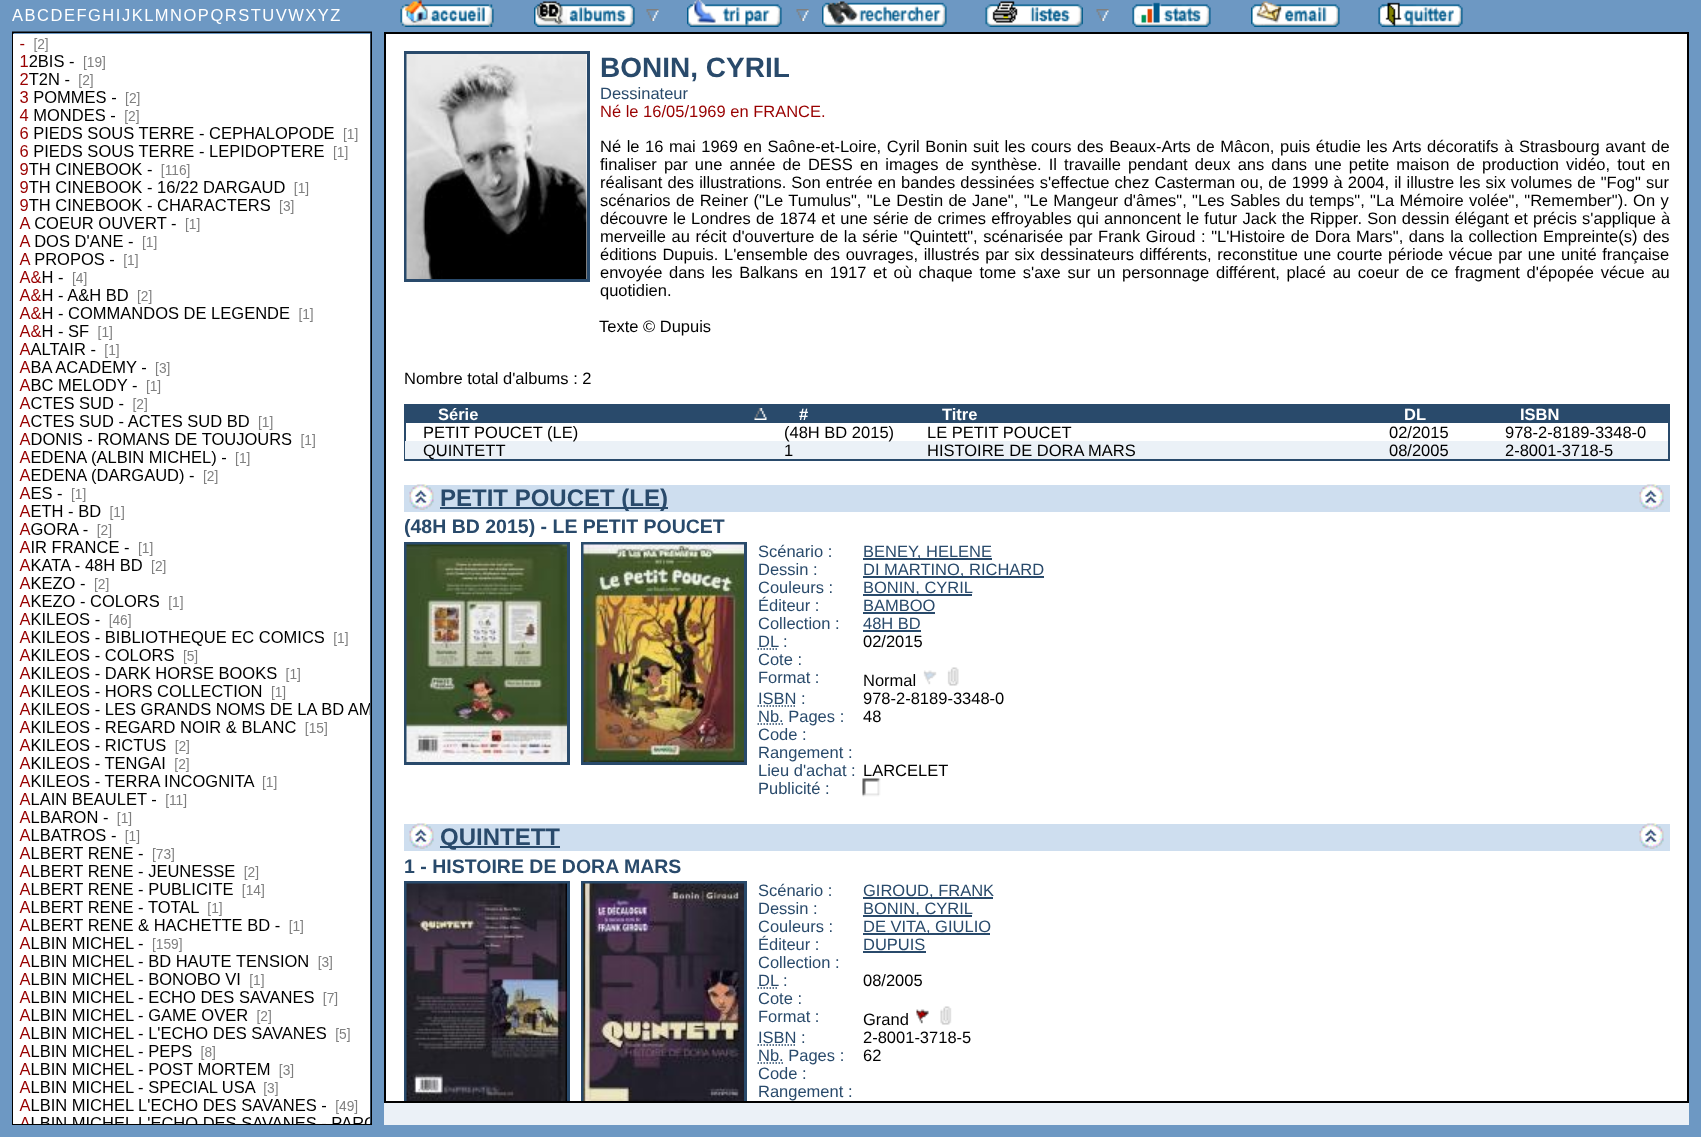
async function draw(canvas) {
  canvas.width = 1701
  canvas.height = 1137
  const ctx = canvas.getContext('2d')
  ctx.miterLimit = 4
  ctx.fontKerning = 'normal'
  async function loadImage(src) {
    const img = new Image()
    img.src = src
    await img.decode()
    return img
  }

  ctx.fillStyle = '#6d98c3'
  ctx.fillRect(0, 0, 1701, 1137)
  ctx.drawImage(await loadImage('image0.png'), 12, 9, 360, 1116)
  ctx.drawImage(await loadImage('image1.png'), 400, 0, 94, 27)
  ctx.drawImage(await loadImage('image2.png'), 646, 9, 13, 12)
  ctx.drawImage(await loadImage('image3.png'), 534, 1, 101, 26)
  ctx.drawImage(await loadImage('image4.png'), 796, 9, 13, 12)
  ctx.drawImage(await loadImage('image5.png'), 687, 0, 95, 27)
  ctx.drawImage(await loadImage('image6.png'), 822, 1, 125, 26)
  ctx.drawImage(await loadImage('image4.png'), 1096, 9, 13, 12)
  ctx.drawImage(await loadImage('image7.png'), 985, 1, 98, 26)
  ctx.drawImage(await loadImage('image8.png'), 1132, 2, 79, 25)
  ctx.drawImage(await loadImage('image9.png'), 1251, 1, 89, 26)
  ctx.drawImage(await loadImage('image10.png'), 1378, 2, 85, 25)
  ctx.fillStyle = '#fff'
  ctx.beginPath()
  ctx.rect(385, 33, 1303, 1069)
  ctx.fill()
  ctx.strokeStyle = '#000'
  ctx.lineWidth = 2
  ctx.stroke()
  ctx.strokeStyle = '#294a6b'
  ctx.lineWidth = 3
  ctx.strokeRect(405.5, 52.5, 183, 228)
  ctx.drawImage(await loadImage('image11.png'), 406, 54, 181, 225)
  ctx.font = 'bold 28px Liberation Sans'
  ctx.fillStyle = '#294a6b'
  ctx.fillText('BONIN, CYRIL', 600, 77)
  ctx.font = '16.5px Liberation Sans'
  ctx.fillText('Dessinateur', 600, 99)
  ctx.fillStyle = '#900'
  ctx.fillText('Né le 16/05/1969 en FRANCE.', 600, 117)
  ctx.wordSpacing = '1px'
  ctx.fillStyle = '#000'
  ctx.fillText('Né le 16 mai 1969 en Saône-et-Loire, Cyril Bonin suit les cours des Beaux-Arts de Mâcon, puis étudie les Arts décoratifs à Strasbourg avant de', 600, 152)
  ctx.wordSpacing = '2.5px'
  ctx.fillText('finaliser par une année de DESS en images de synthèse. Il travaille pendant deux ans dans une petite maison de production vidéo, tout en', 600, 170)
  ctx.wordSpacing = '0.5px'
  ctx.fillText('réalisant des illustrations. Son entrée en bandes dessinées s\'effectue chez Casterman ou, de 1999 à 2004, il illustre les six volumes de "Fog" sur', 600, 188)
  ctx.wordSpacing = '0.75px'
  ctx.fillText('scénarios de Reiner ("Le Tumulus", "Le Destin de Jane", "Le Mangeur d\'âmes", "Les Sables du temps", "La Mémoire volée", "Remember"). On y', 600, 206)
  ctx.wordSpacing = '0.6px'
  ctx.fillText('découvre le Londres de 1874 et une série de crimes effroyables qui annoncent le futur Jack the Ripper. Son dessin élégant et précis s\'applique à', 600, 224)
  ctx.wordSpacing = '1px'
  ctx.fillText('merveille au récit d\'ouverture de la série "Quintett", scénarisée par Frank Giroud : "L\'Histoire de Dora Mars", dans la collection Empreinte(s) des', 600, 242)
  ctx.fillText('éditions Dupuis. L\'ensemble des ouvrages, illustrés par six dessinateurs différents, reconstitue une courte période vécue par une unité française', 600, 260)
  ctx.wordSpacing = '2.1px'
  ctx.fillText('envoyée dans les Balkans en 1917 et où chaque tome s\'axe sur un personnage différent, placé au coeur de ce fragment d\'épopée vécue au', 600, 278)
  ctx.wordSpacing = '0px'
  ctx.fillText('quotidien.', 600, 296)
  ctx.fillText('Texte © Dupuis', 599, 332)
  ctx.fillText('Nombre total d\'albums : 2', 404, 384)
  ctx.lineWidth = 2
  ctx.strokeRect(405, 405, 1264, 55)
  ctx.fillStyle = '#294a6b'
  ctx.fillRect(406, 406, 1262, 17)
  ctx.drawImage(await loadImage('image12.png'), 754, 408, 13, 12)
  ctx.font = 'bold 16.5px Liberation Sans'
  ctx.fillStyle = '#fff'
  ctx.fillText('Série', 438, 420)
  ctx.fillText('#', 799, 420)
  ctx.fillText('Titre', 942, 420)
  ctx.fillText('DL', 1404, 420)
  ctx.fillText('ISBN', 1520, 420)
  ctx.fillStyle = '#ebf1f7'
  ctx.fillRect(405, 441, 1263, 18)
  ctx.font = '16.5px Liberation Sans'
  ctx.fillStyle = '#000'
  ctx.fillText('PETIT POUCET (LE)', 423, 438)
  ctx.fillText('(48H BD 2015)', 784, 438)
  ctx.fillText('LE PETIT POUCET', 927, 438)
  ctx.fillText('02/2015', 1389, 438)
  ctx.fillText('978-2-8189-3348-0', 1505, 438)
  ctx.fillText('QUINTETT', 423, 456)
  ctx.fillText('1', 784, 456)
  ctx.fillText('HISTOIRE DE DORA MARS', 927, 456)
  ctx.fillText('08/2005', 1389, 456)
  ctx.fillText('2-8001-3718-5', 1505, 456)
  ctx.fillStyle = '#cedeef'
  ctx.fillRect(404, 485, 1266, 27)
  ctx.drawImage(await loadImage('image13.png'), 409, 484, 25, 26)
  ctx.drawImage(await loadImage('image14.png'), 1639, 484, 25, 26)
  ctx.fillStyle = '#294a6b'
  ctx.fillRect(440, 507, 228, 2)
  ctx.font = 'bold 24px Liberation Sans'
  ctx.fillText('PETIT POUCET (LE)', 440, 506)
  ctx.font = 'bold 19.5px Liberation Sans'
  ctx.fillText('(48H BD 2015) - LE PETIT POUCET', 404, 533)
  ctx.lineWidth = 3
  ctx.strokeRect(405.5, 543.5, 163, 220)
  ctx.drawImage(await loadImage('image15.png'), 406, 544, 161, 218)
  ctx.strokeRect(582.5, 543.5, 163, 220)
  ctx.drawImage(await loadImage('image16.png'), 583, 544, 161, 218)
  ctx.font = '16.5px Liberation Sans'
  ctx.fillText('Scénario :', 758, 557)
  ctx.fillRect(863, 558, 129, 2)
  ctx.fillText('BENEY, HELENE', 863, 557)
  ctx.fillText('Dessin :', 758, 575)
  ctx.fillRect(863, 576, 181, 2)
  ctx.fillText('DI MARTINO, RICHARD', 863, 575)
  ctx.fillText('Couleurs :', 758, 593)
  ctx.fillRect(863, 594, 109, 2)
  ctx.fillText('BONIN, CYRIL', 863, 593)
  ctx.fillText('Éditeur :', 758, 611)
  ctx.fillText('BAMBOO', 863, 611)
  ctx.fillRect(863, 612, 72, 2)
  ctx.fillText('Collection :', 758, 629)
  ctx.fillText('48H BD', 863, 629)
  ctx.fillRect(863, 630, 58, 2)
  ctx.fillText('DL :', 758, 647)
  ctx.beginPath()
  ctx.moveTo(757.5, 649)
  ctx.lineTo(778.5, 649)
  ctx.lineWidth = 1.5
  ctx.setLineDash([1.5, 1.5])
  ctx.stroke()
  ctx.fillStyle = '#000'
  ctx.fillText('02/2015', 863, 647)
  ctx.fillStyle = '#294a6b'
  ctx.fillText('Cote :', 758, 665)
  ctx.fillText('Format :', 758, 683)
  ctx.fillStyle = '#000'
  ctx.fillText('Normal', 863, 686)
  ctx.drawImage(await loadImage('image17.png'), 923, 670, 14, 15)
  ctx.drawImage(await loadImage('image18.png'), 947, 667, 12, 19)
  ctx.fillStyle = '#294a6b'
  ctx.fillText('ISBN :', 758, 704)
  ctx.beginPath()
  ctx.moveTo(757.5, 706)
  ctx.lineTo(796, 706)
  ctx.stroke()
  ctx.fillStyle = '#000'
  ctx.fillText('978-2-8189-3348-0', 863, 704)
  ctx.beginPath()
  ctx.moveTo(757.5, 724)
  ctx.lineTo(783, 724)
  ctx.stroke()
  ctx.fillStyle = '#294a6b'
  ctx.fillText('Nb. Pages :', 758, 722)
  ctx.fillStyle = '#000'
  ctx.fillText('48', 863, 722)
  ctx.fillStyle = '#294a6b'
  ctx.fillText('Code :', 758, 740)
  ctx.fillText('Rangement :', 758, 758)
  ctx.fillText('Lieu d\'achat :', 758, 776)
  ctx.fillStyle = '#000'
  ctx.fillText('LARCELET', 863, 776)
  ctx.fillStyle = '#294a6b'
  ctx.fillText('Publicité :', 758, 794)
  ctx.drawImage(await loadImage('image19.png'), 862, 778, 19, 19)
  ctx.fillStyle = '#cedeef'
  ctx.fillRect(404, 824, 1266, 27)
  ctx.drawImage(await loadImage('image13.png'), 409, 823, 25, 26)
  ctx.drawImage(await loadImage('image14.png'), 1639, 823, 25, 26)
  ctx.fillStyle = '#294a6b'
  ctx.fillRect(440, 846, 120, 2)
  ctx.font = 'bold 24px Liberation Sans'
  ctx.fillText('QUINTETT', 440, 845)
  ctx.font = 'bold 19.5px Liberation Sans'
  ctx.fillText('1 - HISTOIRE DE DORA MARS', 404, 873)
  ctx.save()
  ctx.beginPath()
  ctx.rect(386, 33, 1302, 1068)
  ctx.clip()
  ctx.lineWidth = 3
  ctx.setLineDash([])
  ctx.strokeRect(405.5, 882.5, 163, 220)
  ctx.restore()
  ctx.drawImage(await loadImage('image20.png'), 406, 883, 161, 218)
  ctx.save()
  ctx.beginPath()
  ctx.rect(386, 33, 1302, 1068)
  ctx.clip()
  ctx.lineWidth = 3
  ctx.setLineDash([])
  ctx.strokeRect(582.5, 882.5, 163, 220)
  ctx.restore()
  ctx.drawImage(await loadImage('image21.png'), 583, 883, 161, 218)
  ctx.font = '16.5px Liberation Sans'
  ctx.fillText('Scénario :', 758, 896)
  ctx.fillRect(863, 897, 130, 2)
  ctx.fillText('GIROUD, FRANK', 863, 896)
  ctx.fillText('Dessin :', 758, 914)
  ctx.fillRect(863, 915, 109, 2)
  ctx.fillText('BONIN, CYRIL', 863, 914)
  ctx.fillText('Couleurs :', 758, 932)
  ctx.fillRect(863, 933, 127, 2)
  ctx.fillText('DE VITA, GIULIO', 863, 932)
  ctx.fillText('Éditeur :', 758, 950)
  ctx.fillText('DUPUIS', 863, 950)
  ctx.fillRect(863, 951, 63, 2)
  ctx.fillText('Collection :', 758, 968)
  ctx.fillText('DL :', 758, 986)
  ctx.beginPath()
  ctx.moveTo(757.5, 988)
  ctx.lineTo(778.5, 988)
  ctx.stroke()
  ctx.fillStyle = '#000'
  ctx.fillText('08/2005', 863, 986)
  ctx.fillStyle = '#294a6b'
  ctx.fillText('Cote :', 758, 1004)
  ctx.fillText('Format :', 758, 1022)
  ctx.fillStyle = '#000'
  ctx.fillText('Grand', 863, 1025)
  ctx.drawImage(await loadImage('image22.png'), 916, 1009, 13, 15)
  ctx.drawImage(await loadImage('image23.png'), 940, 1006, 12, 19)
  ctx.fillStyle = '#294a6b'
  ctx.fillText('ISBN :', 758, 1043)
  ctx.beginPath()
  ctx.moveTo(757.5, 1045)
  ctx.lineTo(796, 1045)
  ctx.stroke()
  ctx.fillStyle = '#000'
  ctx.fillText('2-8001-3718-5', 863, 1043)
  ctx.beginPath()
  ctx.moveTo(757.5, 1063)
  ctx.lineTo(783, 1063)
  ctx.stroke()
  ctx.fillStyle = '#294a6b'
  ctx.fillText('Nb. Pages :', 758, 1061)
  ctx.fillStyle = '#000'
  ctx.fillText('62', 863, 1061)
  ctx.fillStyle = '#294a6b'
  ctx.fillText('Code :', 758, 1079)
  ctx.fillText('Rangement :', 758, 1097)
  ctx.fillStyle = '#ebf1f7'
  ctx.fillRect(384, 1103, 1305, 22)
}

draw(document.querySelector('canvas'))
